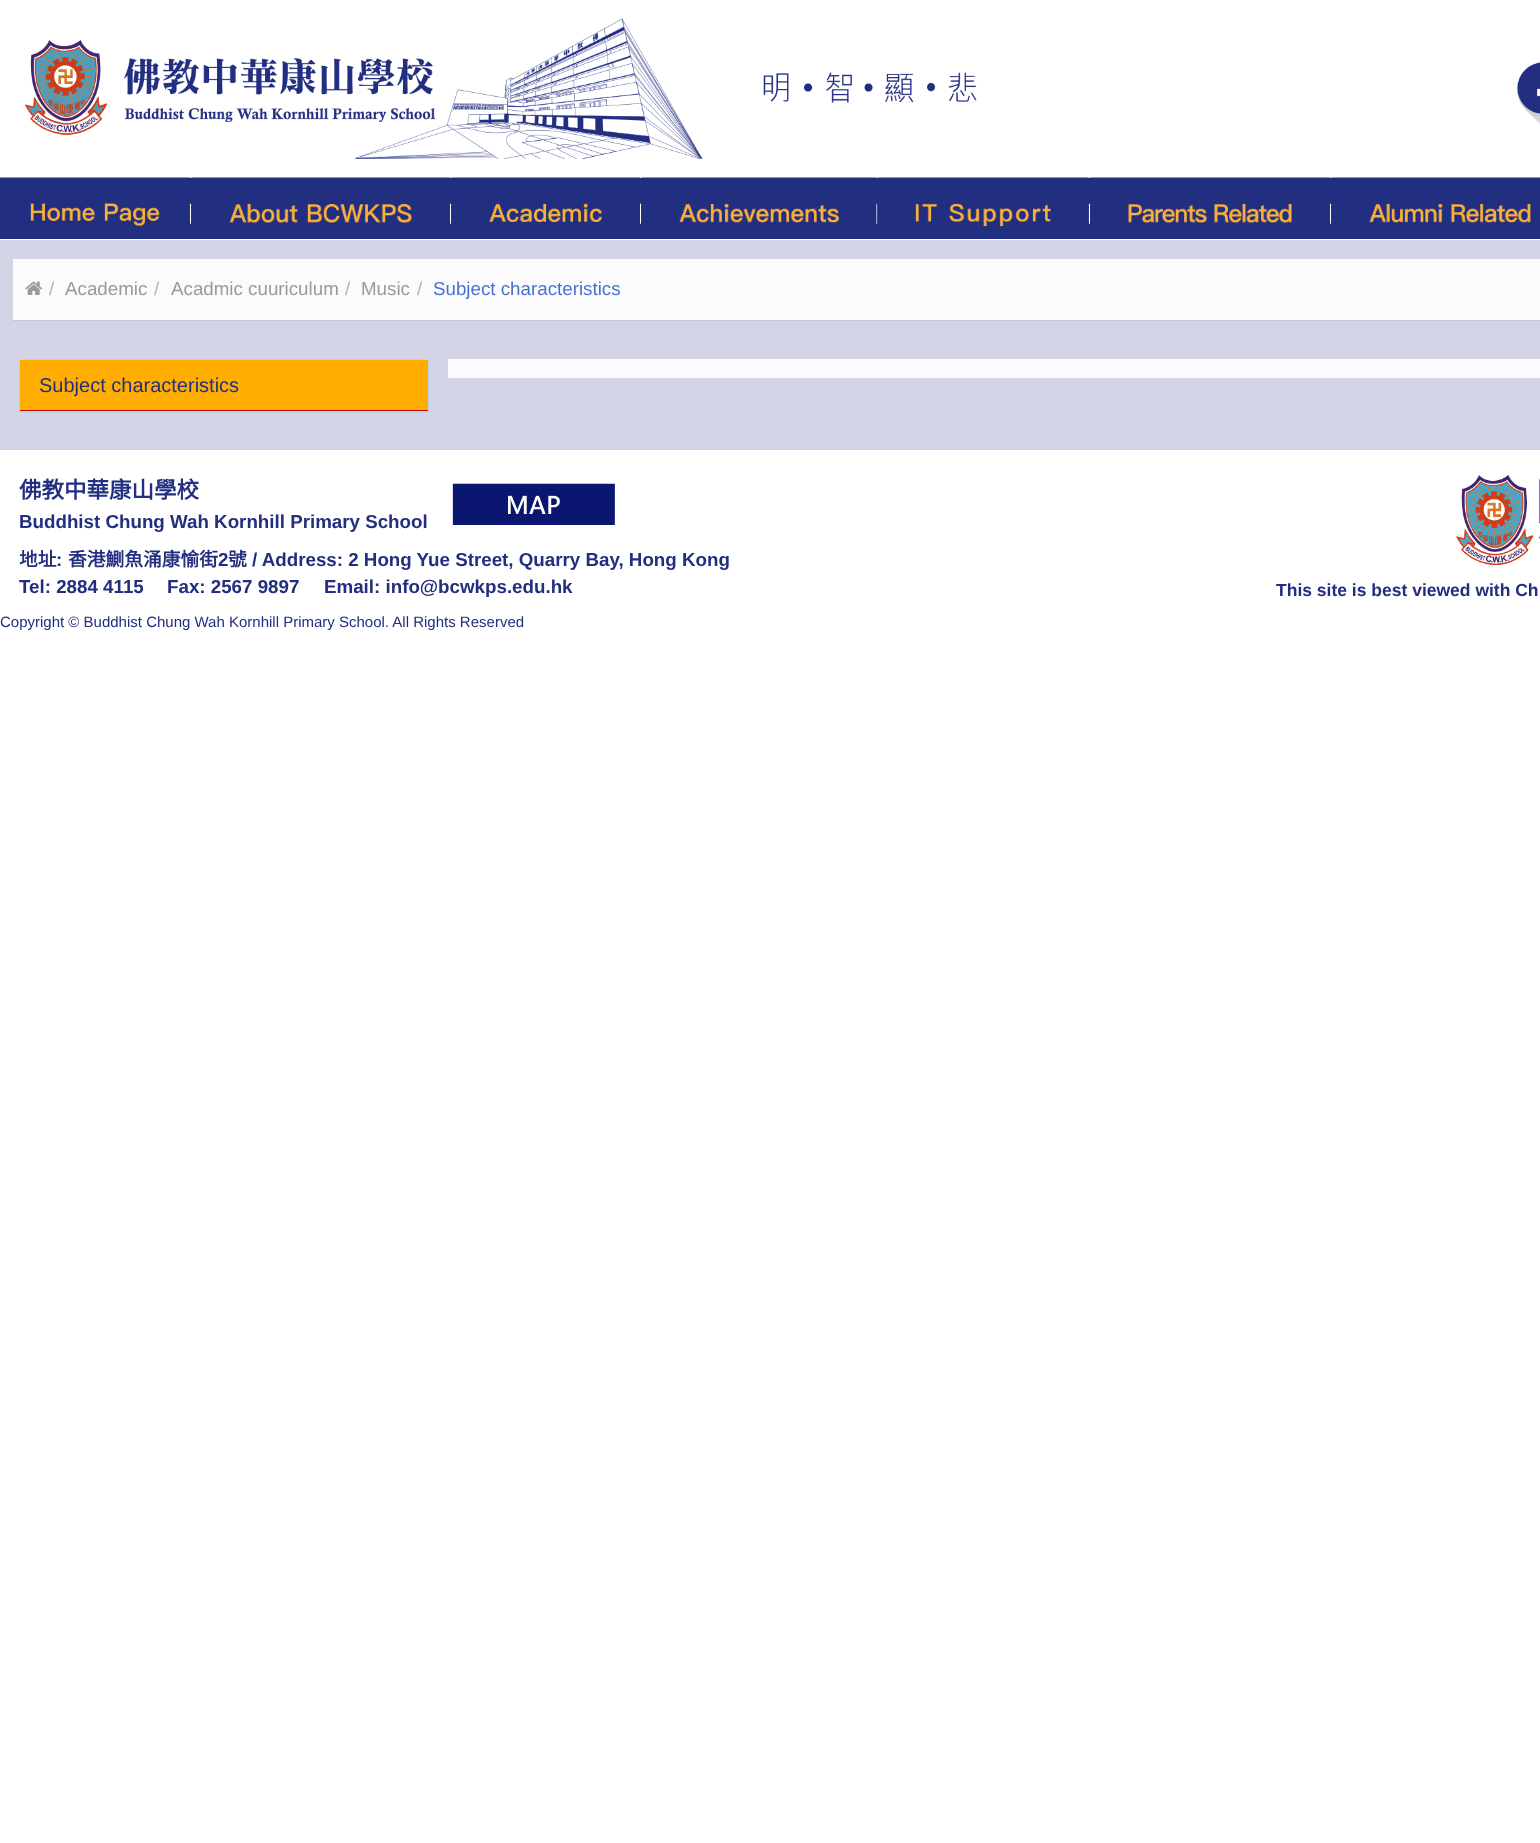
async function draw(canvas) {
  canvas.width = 1540
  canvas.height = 1843
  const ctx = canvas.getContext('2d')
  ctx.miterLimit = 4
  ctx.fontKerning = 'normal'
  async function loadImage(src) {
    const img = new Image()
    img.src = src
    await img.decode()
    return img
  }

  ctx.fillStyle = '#fff'
  ctx.fillRect(0, 0, 1540, 1843)
  ctx.fillStyle = '#222e80'
  ctx.fillRect(0, 178, 1540, 61)
  ctx.drawImage(await loadImage('image0.png'), 25, 18, 678, 141)
  ctx.drawImage(await loadImage('image1.png'), 763, 72, 214, 31)
  ctx.drawImage(await loadImage('image3.png'), 1517, 79, 23, 45)
  ctx.drawImage(await loadImage('image2.png'), 1517, 62, 23, 52)
  ctx.drawImage(await loadImage('image4.png'), 0, 177, 190, 49)
  ctx.drawImage(await loadImage('image11.png'), 190, 203, 2, 21)
  ctx.drawImage(await loadImage('image5.png'), 191, 177, 259, 47)
  ctx.drawImage(await loadImage('image11.png'), 450, 203, 2, 21)
  ctx.drawImage(await loadImage('image6.png'), 451, 177, 189, 47)
  ctx.drawImage(await loadImage('image11.png'), 640, 203, 2, 21)
  ctx.drawImage(await loadImage('image7.png'), 641, 177, 236, 47)
  ctx.drawImage(await loadImage('image12.png'), 876, 203, 2, 21)
  ctx.drawImage(await loadImage('image8.png'), 877, 177, 212, 50)
  ctx.drawImage(await loadImage('image9.png'), 1090, 177, 240, 46)
  ctx.drawImage(await loadImage('image11.png'), 1330, 203, 2, 21)
  ctx.drawImage(await loadImage('image10.png'), 1331, 177, 209, 47)
  ctx.drawImage(await loadImage('image13.png'), 1088, 203, 2, 21)
  ctx.fillStyle = '#d3d5e6'
  ctx.fillRect(0, 240, 1540, 210)
  ctx.fillStyle = '#fbfbfd'
  ctx.fillRect(13, 259, 1527, 61)
  ctx.fillStyle = '#bacbd4'
  ctx.fillRect(13, 320, 1527, 1)
  ctx.drawImage(await loadImage('image14.png'), 25, 281, 18, 14)
  ctx.font = '18.75px Liberation Sans'
  ctx.fillStyle = '#b3b3b3'
  ctx.fillText('/', 49, 295)
  ctx.fillStyle = '#9a9a9a'
  ctx.fillText('Academic', 65, 295)
  ctx.fillStyle = '#b3b3b3'
  ctx.fillText('/', 154, 295)
  ctx.fillStyle = '#9a9a9a'
  ctx.fillText('Acadmic cuuriculum', 171, 295)
  ctx.fillStyle = '#b3b3b3'
  ctx.fillText('/', 345, 295)
  ctx.fillStyle = '#9a9a9a'
  ctx.fillText('Music', 361, 295)
  ctx.fillStyle = '#b3b3b3'
  ctx.fillText('/', 417, 295)
  ctx.fillStyle = '#4873cd'
  ctx.fillText('Subject characteristics', 433, 295)
  ctx.fillStyle = '#fbfbfd'
  ctx.fillRect(448, 359, 1092, 19)
  ctx.beginPath()
  ctx.roundRect(19.5, 359.5, 409, 53, 5.5)
  ctx.strokeStyle = '#b7d3e6'
  ctx.stroke()
  ctx.fillStyle = '#ffae00'
  ctx.fillRect(20, 360, 408, 50)
  ctx.fillStyle = '#ce0000'
  ctx.fillRect(20, 410, 408, 1)
  ctx.font = '20px Liberation Sans'
  ctx.fillStyle = '#222e80'
  ctx.fillText('Subject characteristics', 39, 392)
  ctx.font = 'bold 22.5px Noto Sans CJK HK'
  ctx.fillText('佛教中華康山學校', 19, 498)
  ctx.font = 'bold 18.75px Liberation Sans'
  ctx.fillText('Buddhist Chung Wah Kornhill Primary School', 19, 528)
  ctx.drawImage(await loadImage('image15.png'), 452, 483, 163, 42)
  ctx.font = 'bold 18.75px Noto Sans CJK HK'
  ctx.fillText('地址', 19, 566)
  ctx.font = 'bold 18.75px Liberation Sans'
  ctx.fillText(':', 56, 566)
  ctx.font = 'bold 18.75px Noto Sans CJK HK'
  ctx.fillText('香港鰂魚涌康愉街', 68, 566)
  ctx.font = 'bold 18.75px Liberation Sans'
  ctx.fillText('2', 218, 566)
  ctx.font = 'bold 18.75px Noto Sans CJK HK'
  ctx.fillText('號', 228, 566)
  ctx.font = 'bold 18.75px Liberation Sans'
  ctx.fillText('/ Address: 2 Hong Yue Street, Quarry Bay, Hong Kong', 252, 566)
  ctx.fillText('Tel: 2884 4115', 19, 593)
  ctx.fillText('Fax: 2567 9897', 167, 593)
  ctx.fillText('Email: info@bcwkps.edu.hk', 324, 593)
  ctx.drawImage(await loadImage('image16.png'), 1456, 475, 84, 90)
  ctx.font = 'bold 17.5px Liberation Sans'
  ctx.fillText('This site is best viewed with Ch', 1276, 596)
  ctx.font = '15px Liberation Sans'
  ctx.fillText('Copyright © Buddhist Chung Wah Kornhill Primary School. All Rights Reserved', 0, 627)
}

draw(document.querySelector('canvas'))
